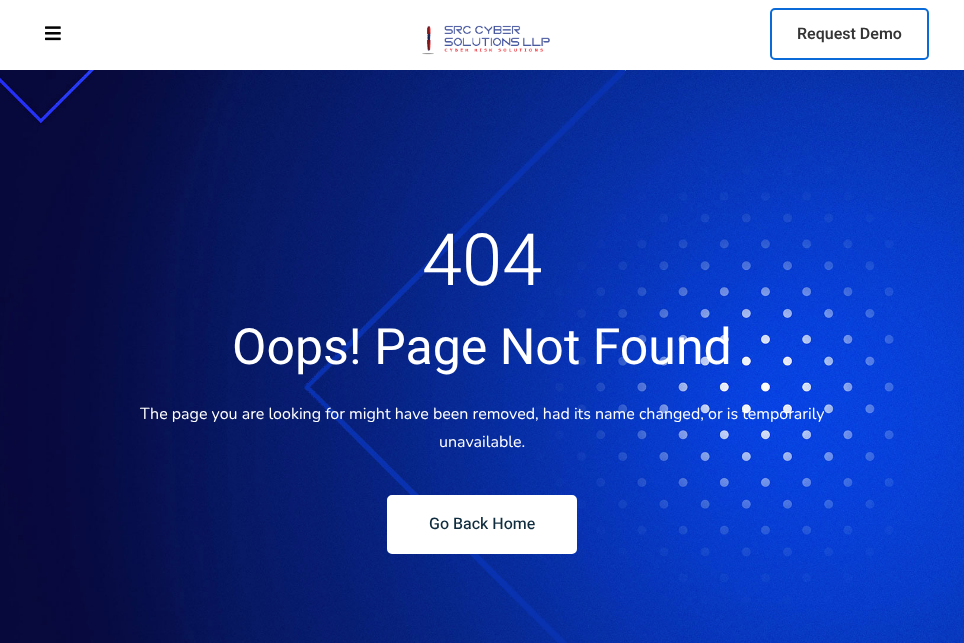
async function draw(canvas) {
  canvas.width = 964
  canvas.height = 643
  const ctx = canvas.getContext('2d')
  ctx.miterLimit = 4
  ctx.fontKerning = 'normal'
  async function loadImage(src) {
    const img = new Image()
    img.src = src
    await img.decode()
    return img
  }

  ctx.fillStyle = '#fff'
  ctx.fillRect(0, 0, 964, 643)
  ctx.drawImage(await loadImage('image0.png'), 45, 26, 16, 15)
  ctx.drawImage(await loadImage('image1.png'), 422, 25, 128, 30)
  ctx.beginPath()
  ctx.roundRect(771, 9, 157, 50, 4)
  ctx.strokeStyle = '#0a6bd8'
  ctx.lineWidth = 2
  ctx.stroke()
  ctx.font = '600 16px Heebo'
  ctx.fillStyle = '#353535'
  ctx.fillText('Request Demo', 797, 39)
  ctx.drawImage(await loadImage('image2.png'), 0, 70, 964, 573)
  ctx.font = '300 72px Heebo'
  ctx.fillStyle = '#fff'
  ctx.fillText('404', 422, 285)
  ctx.font = '50px Heebo'
  ctx.fillText('Oops! Page Not Found', 232, 364)
  ctx.font = '200 16px Nunito'
  ctx.fillText('The page you are looking for might have been removed, had its name changed, or is temporarily', 140, 419)
  ctx.fillText('unavailable.', 439, 447)
  ctx.beginPath()
  ctx.roundRect(388, 496, 188, 57, 4)
  ctx.fill()
  ctx.strokeStyle = '#fff'
  ctx.stroke()
  ctx.font = '500 16px Heebo'
  ctx.fillStyle = '#102d3f'
  ctx.fillText('Go Back Home', 429, 529)
}

draw(document.querySelector('canvas'))
